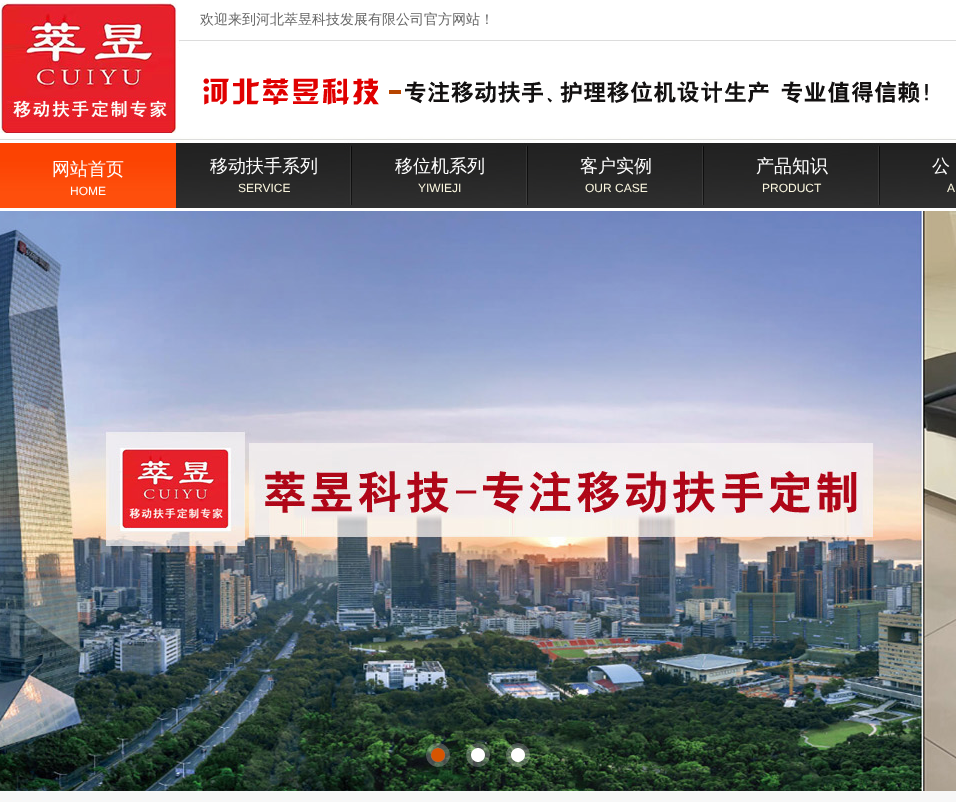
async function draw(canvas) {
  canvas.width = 956
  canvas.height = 802
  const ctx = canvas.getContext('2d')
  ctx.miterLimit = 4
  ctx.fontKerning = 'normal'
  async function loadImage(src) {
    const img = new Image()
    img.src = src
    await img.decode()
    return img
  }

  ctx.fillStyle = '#fff'
  ctx.fillRect(0, 0, 956, 802)
  ctx.drawImage(await loadImage('image0.png'), 0, 40, 956, 168)
  ctx.drawImage(await loadImage('image1.png'), 0, 0, 180, 133)
  ctx.drawImage(await loadImage('image2.png'), 203, 78, 725, 27)
  ctx.font = '500 14px WenQuanYi Zen Hei'
  ctx.fillStyle = '#666'
  ctx.fillText('欢迎来到河北萃昱科技发展有限公司官方网站！', 200, 24)
  ctx.drawImage(await loadImage('image3.png'), 0, 143, 176, 65)
  ctx.font = '500 18px WenQuanYi Zen Hei'
  ctx.fillStyle = '#fff'
  ctx.fillText('网站首页', 52, 175)
  ctx.font = '12px Liberation Sans'
  ctx.fillText('HOME', 70, 195)
  ctx.drawImage(await loadImage('image4.png'), 184, 140, 168, 65)
  ctx.font = '500 18px WenQuanYi Zen Hei'
  ctx.fillText('移动扶手系列', 210, 172)
  ctx.font = '12px Liberation Sans'
  ctx.fillStyle = '#fbf7df'
  ctx.fillText('SERVICE', 238, 192)
  ctx.drawImage(await loadImage('image4.png'), 360, 140, 168, 65)
  ctx.font = '500 18px WenQuanYi Zen Hei'
  ctx.fillStyle = '#fff'
  ctx.fillText('移位机系列', 395, 172)
  ctx.font = '12px Liberation Sans'
  ctx.fillStyle = '#fbf7df'
  ctx.fillText('YIWIEJI', 418, 192)
  ctx.drawImage(await loadImage('image4.png'), 536, 140, 168, 65)
  ctx.font = '500 18px WenQuanYi Zen Hei'
  ctx.fillStyle = '#fff'
  ctx.fillText('客户实例', 580, 172)
  ctx.font = '12px Liberation Sans'
  ctx.fillStyle = '#fbf7df'
  ctx.fillText('OUR CASE', 585, 192)
  ctx.drawImage(await loadImage('image4.png'), 712, 140, 168, 65)
  ctx.font = '500 18px WenQuanYi Zen Hei'
  ctx.fillStyle = '#fff'
  ctx.fillText('产品知识', 756, 172)
  ctx.font = '12px Liberation Sans'
  ctx.fillStyle = '#fbf7df'
  ctx.fillText('PRODUCT', 762, 192)
  ctx.fillStyle = '#fff'
  ctx.fillRect(888, 140, 68, 1)
  ctx.font = '500 18px WenQuanYi Zen Hei'
  ctx.fillText('公', 932, 172)
  ctx.font = '12px Liberation Sans'
  ctx.fillStyle = '#fbf7df'
  ctx.fillText('A', 947, 192)
  ctx.drawImage(await loadImage('image5.png'), 0, 211, 956, 580)
  ctx.drawImage(await loadImage('image6.png'), 426, 743, 24, 24)
  ctx.drawImage(await loadImage('image7.png'), 466, 743, 24, 24)
  ctx.drawImage(await loadImage('image8.png'), 506, 743, 24, 24)
  ctx.fillStyle = '#f7f7f7'
  ctx.fillRect(0, 791, 956, 11)
}

draw(document.querySelector('canvas'))
